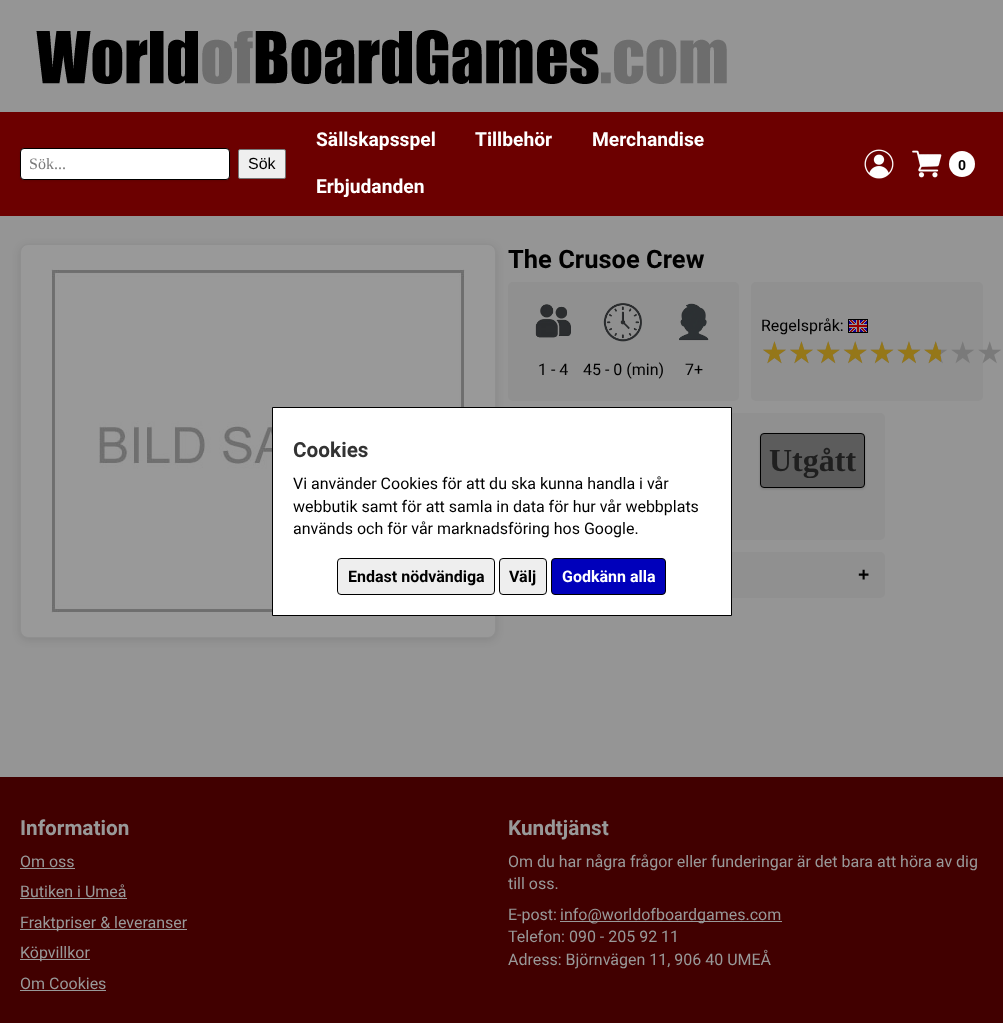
async function draw(canvas) {
  canvas.width = 1003
  canvas.height = 1023
  const ctx = canvas.getContext('2d')
  ctx.miterLimit = 4
  ctx.fontKerning = 'normal'
  async function loadImage(src) {
    const img = new Image()
    img.src = src
    await img.decode()
    return img
  }

  ctx.fillStyle = '#959595'
  ctx.fillRect(0, 0, 1003, 1023)
  ctx.drawImage(await loadImage('image0.png'), 36, 30, 691, 55)
  ctx.fillStyle = '#6c0000'
  ctx.fillRect(0, 112, 1003, 104)
  ctx.fillStyle = '#0000001a'
  ctx.filter = 'blur(1px)'
  ctx.beginPath()
  ctx.roundRect(20, 149, 210, 32, 4)
  ctx.fill()
  ctx.filter = 'none'
  ctx.fillStyle = '#fff'
  ctx.beginPath()
  ctx.roundRect(20.5, 148.5, 209, 31, 3.5)
  ctx.fill()
  ctx.strokeStyle = '#000'
  ctx.stroke()
  ctx.font = '16px Liberation Serif'
  ctx.fillStyle = '#7a7a7a'
  ctx.fillText('Sök...', 29, 169)
  ctx.fillStyle = '#efefef'
  ctx.beginPath()
  ctx.roundRect(238.5, 149.5, 47, 29, 1.5)
  ctx.fill()
  ctx.strokeStyle = '#767676'
  ctx.stroke()
  ctx.font = '16px Liberation Sans'
  ctx.fillStyle = '#000'
  ctx.fillText('Sök', 248, 169)
  ctx.font = 'bold 19.25px Roboto'
  ctx.fillStyle = '#fff'
  ctx.fillText('Sällskapsspel', 316, 146)
  ctx.fillText('Tillbehör', 475, 146)
  ctx.fillText('Merchandise', 592, 146)
  ctx.fillText('Erbjudanden', 316, 193)
  ctx.drawImage(await loadImage('image1.png'), 864, 149, 30, 30)
  ctx.drawImage(await loadImage('image2.png'), 912, 150, 30, 28)
  ctx.beginPath()
  ctx.arc(962, 164, 13, 0, 2 * Math.PI)
  ctx.fill()
  ctx.font = 'bold 14px Roboto'
  ctx.fillStyle = '#000'
  ctx.fillText('0', 958, 170)
  ctx.fillStyle = '#0000001a'
  ctx.filter = 'blur(4px)'
  ctx.beginPath()
  ctx.roundRect(20, 246, 476, 394, 8)
  ctx.fill()
  ctx.filter = 'none'
  ctx.fillStyle = '#999'
  ctx.beginPath()
  ctx.roundRect(20.5, 244.5, 475, 393, 7.5)
  ctx.fill()
  ctx.strokeStyle = '#8f8f8f'
  ctx.stroke()
  ctx.drawImage(await loadImage('image3.png'), 51, 269, 414, 344)
  ctx.fillStyle = '#909090'
  ctx.beginPath()
  ctx.roundRect(508, 413, 377, 127, 5)
  ctx.fill()
  ctx.beginPath()
  ctx.roundRect(508, 552, 377, 46, 5)
  ctx.fill()
  ctx.fillStyle = '#fff'
  ctx.beginPath()
  ctx.rect(272.5, 407.5, 459, 208)
  ctx.fill()
  ctx.strokeStyle = '#000'
  ctx.stroke()
  ctx.font = 'bold 20.75px Roboto'
  ctx.fillStyle = '#333'
  ctx.fillText('Cookies', 293, 457)
  ctx.font = '16px Roboto'
  ctx.fillStyle = '#000'
  ctx.fillText('Vi använder Cookies för att du ska kunna handla i vår', 293, 489)
  ctx.fillText('webbutik samt för att samla in data för hur vår webbplats', 293, 512)
  ctx.fillText('används och för vår marknadsföring hos Google.', 293, 534)
  ctx.fillStyle = '#eee'
  ctx.beginPath()
  ctx.roundRect(337.5, 558.5, 157, 36, 3.5)
  ctx.fill()
  ctx.stroke()
  ctx.font = 'bold 16px Roboto'
  ctx.fillStyle = '#000'
  ctx.fillText('Endast nödvändiga', 348, 582)
  ctx.fillStyle = '#eee'
  ctx.beginPath()
  ctx.roundRect(499.5, 558.5, 47, 36, 3.5)
  ctx.fill()
  ctx.stroke()
  ctx.fillStyle = '#000'
  ctx.fillText('Välj', 509, 582)
  ctx.fillStyle = '#00b'
  ctx.beginPath()
  ctx.roundRect(551.5, 558.5, 114, 36, 3.5)
  ctx.fill()
  ctx.stroke()
  ctx.fillStyle = '#fff'
  ctx.fillText('Godkänn alla', 562, 582)
  ctx.font = 'bold 25.5px Roboto'
  ctx.fillStyle = '#000'
  ctx.fillText('The Crusoe Crew', 508, 268)
  ctx.fillStyle = '#909090'
  ctx.beginPath()
  ctx.roundRect(751, 282, 232, 119, 5)
  ctx.fill()
  ctx.font = '16px Roboto'
  ctx.fillStyle = '#000'
  ctx.fillText('Regelspråk:', 761, 331)
  ctx.drawImage(await loadImage('image4.png'), 848, 319, 20, 14)
  ctx.font = '30px DejaVu Sans'
  ctx.fillStyle = '#7a7a7a'
  ctx.fillText('★★★★★★★★★', 761, 363)
  ctx.save()
  ctx.beginPath()
  ctx.rect(761, 338, 180, 30)
  ctx.clip()
  ctx.fillStyle = '#957719'
  ctx.fillText('★★★★★★★', 761, 363)
  ctx.restore()
  ctx.fillStyle = '#909090'
  ctx.beginPath()
  ctx.roundRect(508, 282, 231, 119, 5)
  ctx.fill()
  ctx.drawImage(await loadImage('image5.png'), 535, 304, 36, 34)
  ctx.drawImage(await loadImage('image6.png'), 603, 303, 39, 39)
  ctx.drawImage(await loadImage('image7.png'), 679, 303, 30, 38)
  ctx.font = '16px Roboto'
  ctx.fillStyle = '#000'
  ctx.fillText('1 - 4', 538, 375)
  ctx.fillText('45 - 0 (min)', 583, 375)
  ctx.fillText('7+', 685, 375)
  ctx.fillStyle = '#00000026'
  ctx.filter = 'blur(1px)'
  ctx.beginPath()
  ctx.roundRect(760, 434, 105, 55, 4)
  ctx.fill()
  ctx.filter = 'none'
  ctx.fillStyle = '#5c5c5c'
  ctx.beginPath()
  ctx.roundRect(760.5, 433.5, 104, 54, 3.5)
  ctx.fill()
  ctx.stroke()
  ctx.font = 'bold 32px Liberation Serif'
  ctx.fillStyle = '#1f1f1f'
  ctx.fillText('Utgått', 769, 471)
  ctx.font = 'bold 19.25px Liberation Sans'
  ctx.fillStyle = '#000'
  ctx.fillText('+', 858, 581)
  ctx.fillStyle = '#410000'
  ctx.fillRect(0, 777, 1003, 246)
  ctx.font = 'bold 20.75px Roboto'
  ctx.fillStyle = '#999'
  ctx.fillText('Information', 20, 835)
  ctx.font = '16px Roboto'
  ctx.fillText('Om oss', 20, 867)
  ctx.fillRect(20, 868, 55, 1)
  ctx.fillText('Butiken i Umeå', 20, 897)
  ctx.fillRect(20, 898, 107, 1)
  ctx.fillRect(20, 929, 167, 1)
  ctx.fillText('Fraktpriser & leveranser', 20, 928)
  ctx.fillRect(20, 959, 70, 1)
  ctx.fillText('Köpvillkor', 20, 958)
  ctx.fillText('Om Cookies', 20, 989)
  ctx.fillRect(20, 990, 86, 1)
  ctx.font = 'bold 20.75px Roboto'
  ctx.fillText('Kundtjänst', 508, 835)
  ctx.font = '16px Roboto'
  ctx.fillText('Om du har några frågor eller funderingar är det bara att höra av dig', 508, 867)
  ctx.fillText('till oss.', 508, 889)
  ctx.fillText('E-post:', 508, 920)
  ctx.fillRect(560, 921, 222, 1)
  ctx.fillText('info@worldofboardgames.com', 560, 920)
  ctx.fillText('Telefon: 090 - 205 92 11', 508, 942)
  ctx.fillText('Adress: Björnvägen 11, 906 40 UMEÅ', 508, 965)
}

draw(document.querySelector('canvas'))
